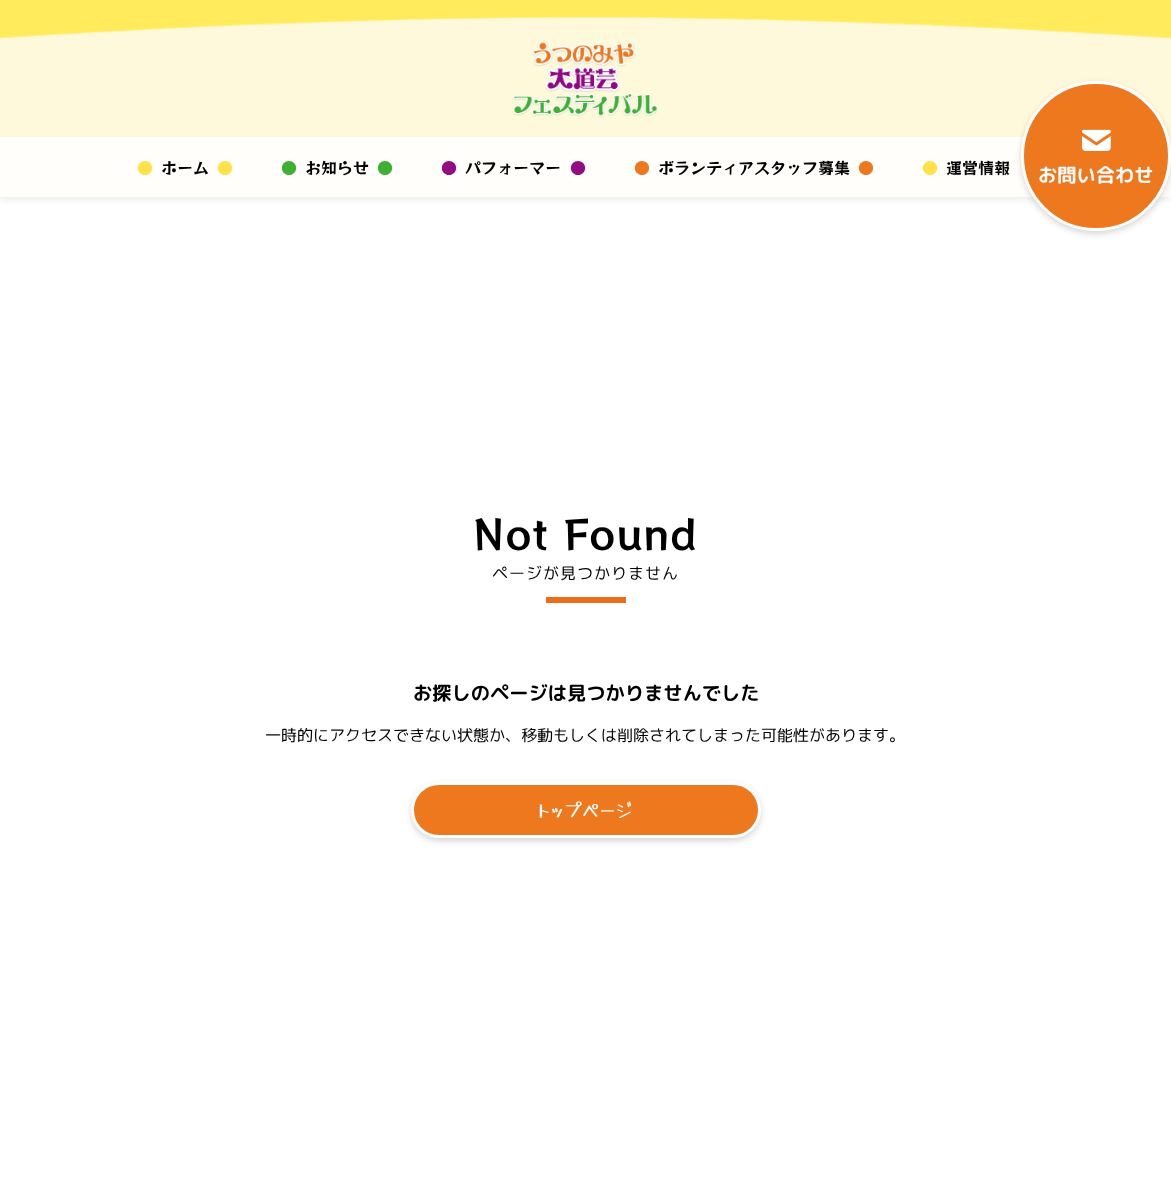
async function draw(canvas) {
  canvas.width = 1171
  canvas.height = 1177
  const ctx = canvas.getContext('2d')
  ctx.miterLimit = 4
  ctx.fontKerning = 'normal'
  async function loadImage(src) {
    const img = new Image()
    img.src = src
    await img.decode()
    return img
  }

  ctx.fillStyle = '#fff'
  ctx.fillRect(0, 0, 1171, 1177)
  ctx.fillStyle = '#fff9db'
  ctx.fillRect(0, 16, 1171, 121)
  ctx.drawImage(await loadImage('image0.png'), 0, 0, 1171, 39)
  ctx.drawImage(await loadImage('image1.png'), 512, 41, 147, 77)
  ctx.fillStyle = '#eee'
  ctx.filter = 'blur(3px)'
  ctx.beginPath()
  ctx.rect(0, 140, 1171, 60)
  ctx.fill()
  ctx.filter = 'none'
  ctx.fillStyle = '#fffefb'
  ctx.fillRect(0, 137, 1171, 60)
  ctx.font = '16px RocknRoll One'
  ctx.fillStyle = '#ffe24a'
  ctx.fillText('●', 137, 174)
  ctx.fillStyle = '#000'
  ctx.fillText('ホーム', 161, 174)
  ctx.fillStyle = '#ffe24a'
  ctx.fillText('●', 217, 174)
  ctx.fillStyle = '#3eb134'
  ctx.fillText('●', 281, 174)
  ctx.fillStyle = '#000'
  ctx.fillText('お知らせ', 305, 174)
  ctx.fillStyle = '#3eb134'
  ctx.fillText('●', 377, 174)
  ctx.fillStyle = '#920d83'
  ctx.fillText('●', 441, 174)
  ctx.fillStyle = '#000'
  ctx.fillText('パフォーマー', 465, 174)
  ctx.fillStyle = '#920d83'
  ctx.fillText('●', 570, 174)
  ctx.fillStyle = '#ee781e'
  ctx.fillText('●', 634, 174)
  ctx.fillStyle = '#000'
  ctx.fillText('ボランティアスタッフ募集', 658, 174)
  ctx.fillStyle = '#ee781e'
  ctx.fillText('●', 858, 174)
  ctx.fillStyle = '#ffe24a'
  ctx.fillText('●', 922, 174)
  ctx.fillStyle = '#000'
  ctx.fillText('運営情報', 946, 174)
  ctx.fillStyle = '#00000029'
  ctx.filter = 'blur(3px)'
  ctx.beginPath()
  ctx.roundRect(1021, 84, 150, 150, 75)
  ctx.fill()
  ctx.filter = 'none'
  ctx.fillStyle = '#ee781e'
  ctx.beginPath()
  ctx.arc(1096, 156, 73.5, 0, 2 * Math.PI)
  ctx.fill()
  ctx.strokeStyle = '#fff'
  ctx.lineWidth = 3
  ctx.stroke()
  ctx.drawImage(await loadImage('image2.png'), 1082, 129, 29, 22)
  ctx.font = 'bold 19.25px "Rounded Mplus 1c Bold"'
  ctx.fillStyle = '#fff'
  ctx.fillText('お問い合わせ', 1038, 182)
  ctx.letterSpacing = '1px'
  ctx.font = '40px RocknRoll One'
  ctx.fillStyle = '#000'
  ctx.fillText('Not Found', 473, 550)
  ctx.font = '16px "Rounded Mplus 1c"'
  ctx.fillText('ページが見つかりません', 492, 579)
  ctx.fillStyle = '#eb6d1c'
  ctx.fillRect(546, 597, 80, 6)
  ctx.letterSpacing = '0px'
  ctx.font = 'bold 19.25px "Rounded Mplus 1c Bold"'
  ctx.fillStyle = '#000'
  ctx.fillText('お探しのページは見つかりませんでした', 413, 700)
  ctx.font = '16px "Rounded Mplus 1c"'
  ctx.fillText('一時的にアクセスできない状態か、移動もしくは削除されてしまった可能性があります。', 265, 741)
  ctx.fillStyle = '#00000029'
  ctx.filter = 'blur(3px)'
  ctx.beginPath()
  ctx.roundRect(411, 785, 350, 56, 28)
  ctx.fill()
  ctx.filter = 'none'
  ctx.fillStyle = '#ee781e'
  ctx.beginPath()
  ctx.roundRect(412.5, 783.5, 347, 53, 26.5)
  ctx.fill()
  ctx.stroke()
  ctx.letterSpacing = '1px'
  ctx.font = '17.5px Yusei Magic'
  ctx.fillStyle = '#fff'
  ctx.fillText('トップページ', 537, 817)
}

draw(document.querySelector('canvas'))
